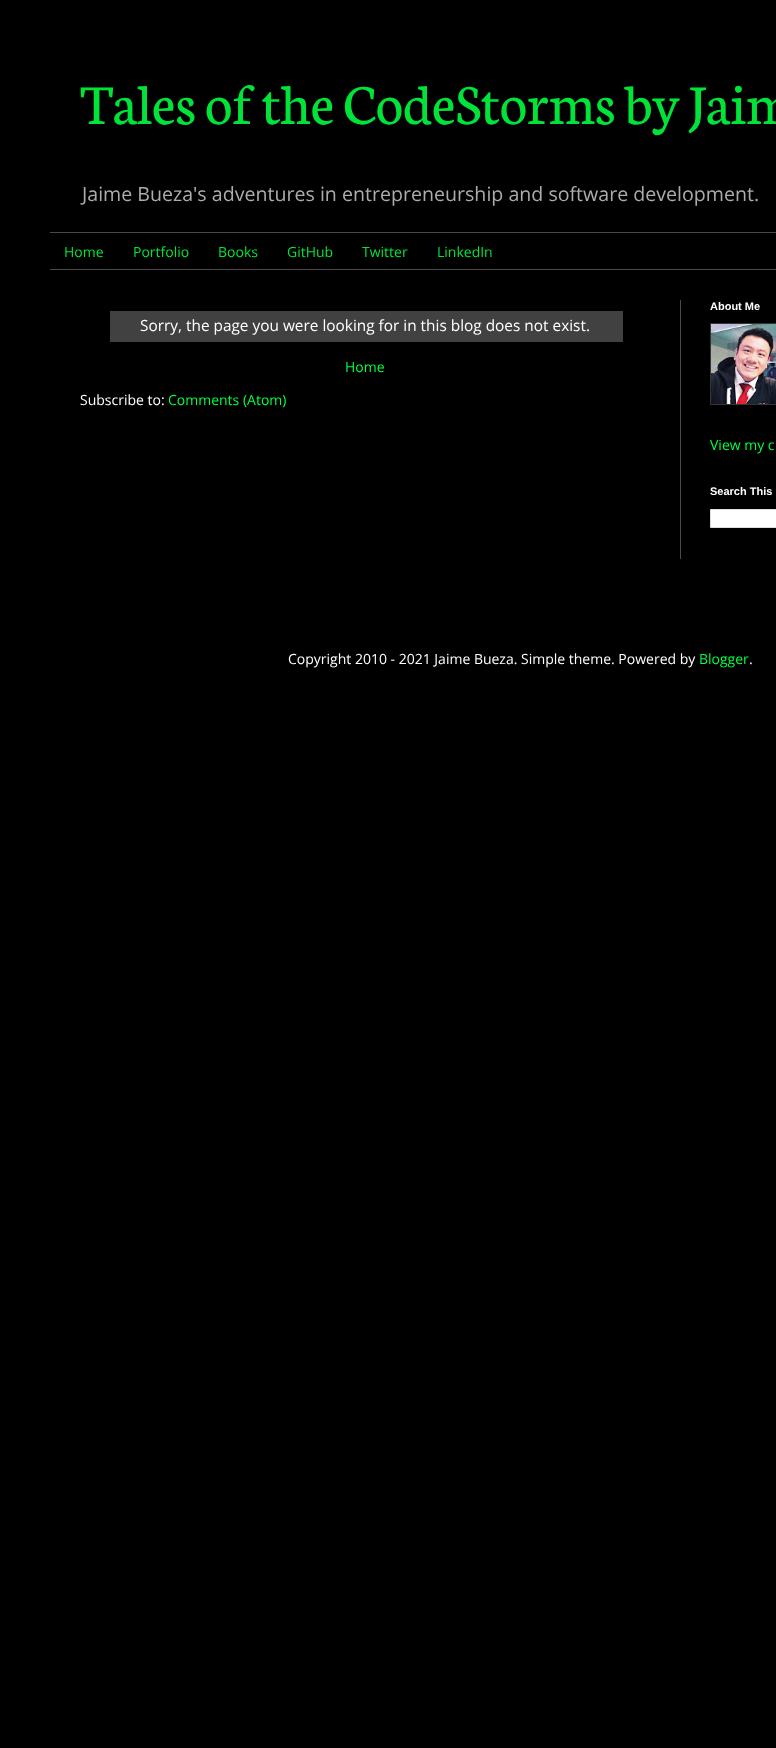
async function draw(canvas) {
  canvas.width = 776
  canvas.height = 1748
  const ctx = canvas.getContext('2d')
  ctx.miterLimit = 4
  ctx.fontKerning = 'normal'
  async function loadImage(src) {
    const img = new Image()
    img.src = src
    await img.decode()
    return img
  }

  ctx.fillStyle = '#000'
  ctx.fillRect(0, 0, 776, 1748)
  ctx.font = '60px Neuton'
  ctx.fillStyle = '#00e43a'
  ctx.fillText('Tales of the CodeStorms by Jaim', 80, 124)
  ctx.font = '19.6px Open Sans'
  ctx.fillStyle = '#acacac'
  ctx.fillText('Jaime Bueza\'s adventures in entrepreneurship and software development.', 82, 201)
  ctx.fillStyle = '#4a4a4a'
  ctx.fillRect(50, 232, 726, 1)
  ctx.fillRect(50, 269, 726, 1)
  ctx.font = '14px Open Sans'
  ctx.fillStyle = '#00e43a'
  ctx.fillText('Home', 64, 257)
  ctx.fillText('Portfolio', 133, 257)
  ctx.fillText('Books', 218, 257)
  ctx.fillText('GitHub', 287, 257)
  ctx.fillText('Twitter', 362, 257)
  ctx.fillText('LinkedIn', 437, 257)
  ctx.fillStyle = '#4a4a4a'
  ctx.fillRect(680, 300, 1, 259)
  ctx.fillStyle = '#414141'
  ctx.fillRect(110, 311, 513, 31)
  ctx.font = '15.4px Open Sans'
  ctx.fillStyle = '#fff'
  ctx.fillText('Sorry, the page you were looking for in this blog does not exist.', 140, 331)
  ctx.font = '14px Open Sans'
  ctx.fillStyle = '#00ff41'
  ctx.fillText('Home', 345, 372)
  ctx.fillStyle = '#fff'
  ctx.fillText('Subscribe to:', 80, 405)
  ctx.fillStyle = '#00ff41'
  ctx.fillText('Comments (Atom)', 168, 405)
  ctx.font = 'bold 11px Liberation Sans'
  ctx.fillStyle = '#fff'
  ctx.fillText('About Me', 710, 310)
  ctx.fillStyle = '#353535'
  ctx.fillRect(710, 323, 66, 82)
  ctx.drawImage(await loadImage('image0.png'), 711, 324, 65, 80)
  ctx.font = '14px Open Sans'
  ctx.fillStyle = '#00ff41'
  ctx.fillText('View my c', 710, 450)
  ctx.font = 'bold 11px Liberation Sans'
  ctx.fillStyle = '#fff'
  ctx.fillText('Search This', 710, 495)
  ctx.beginPath()
  ctx.rect(710.5, 509.5, 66, 18)
  ctx.fill()
  ctx.strokeStyle = '#ddd'
  ctx.stroke()
  ctx.font = '14px Open Sans'
  ctx.fillText('Copyright 2010 - 2021 Jaime Bueza. Simple theme. Powered by', 288, 664)
  ctx.fillStyle = '#00ff41'
  ctx.fillText('Blogger', 699, 664)
  ctx.fillStyle = '#fff'
  ctx.fillText('.', 749, 664)
}

draw(document.querySelector('canvas'))
